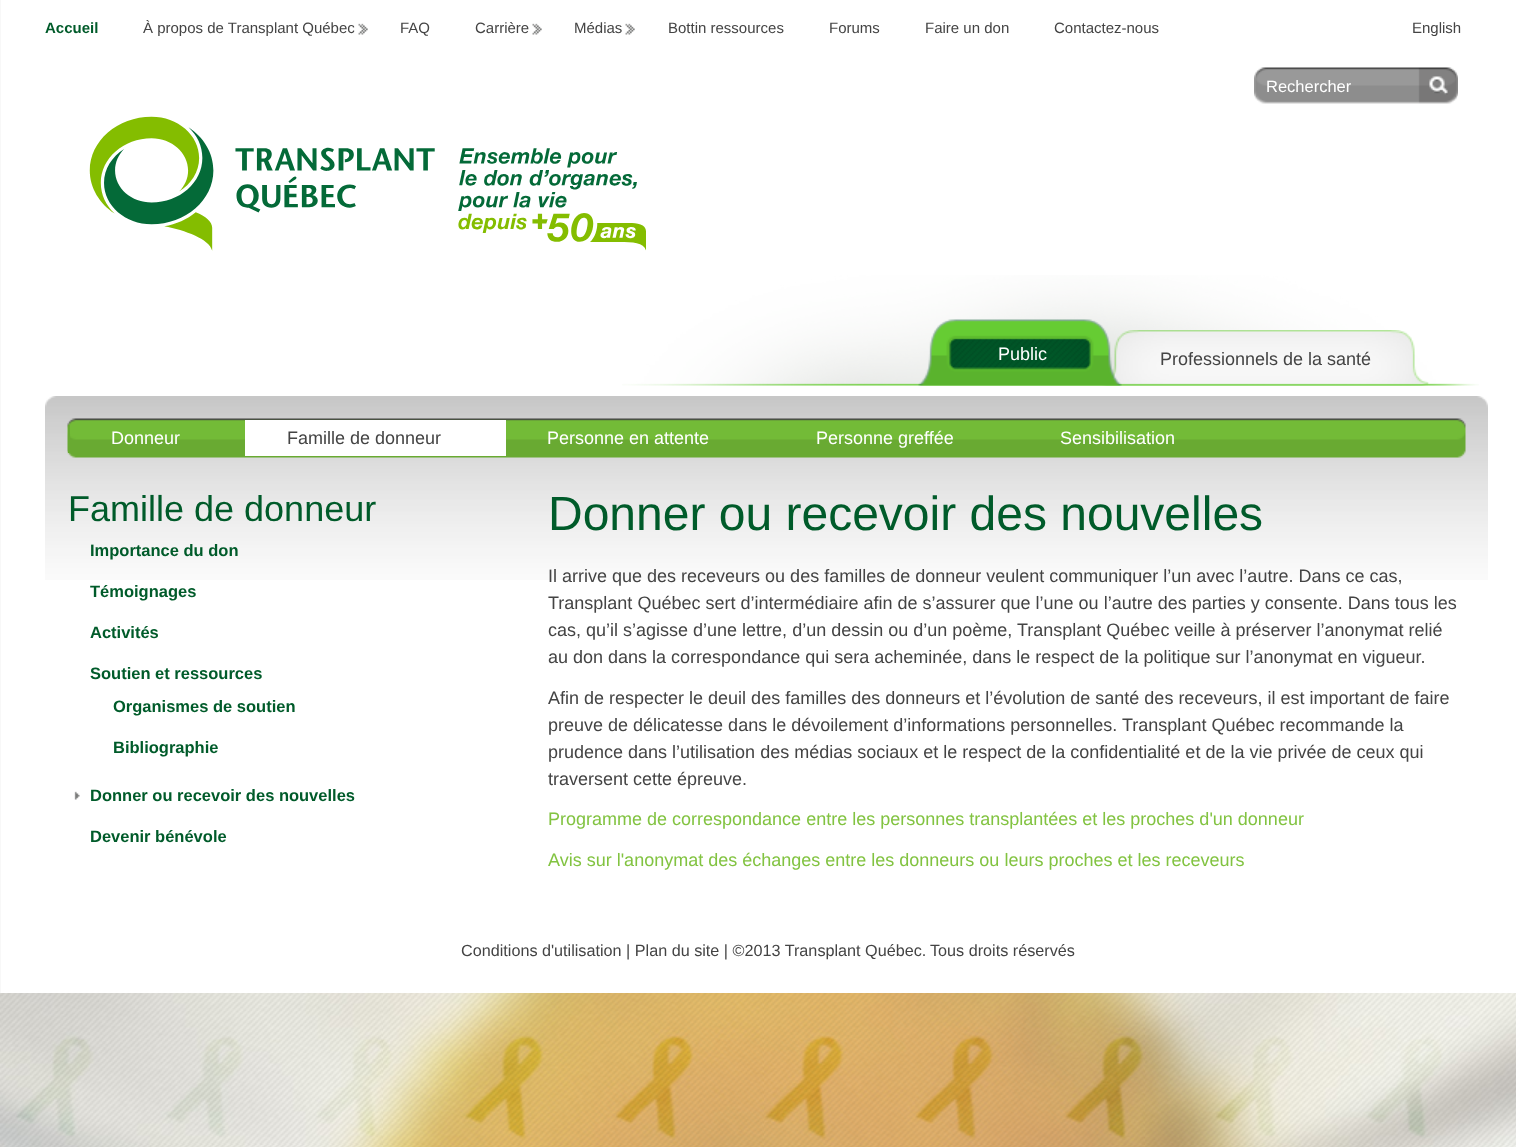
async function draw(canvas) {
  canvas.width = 1516
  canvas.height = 1147
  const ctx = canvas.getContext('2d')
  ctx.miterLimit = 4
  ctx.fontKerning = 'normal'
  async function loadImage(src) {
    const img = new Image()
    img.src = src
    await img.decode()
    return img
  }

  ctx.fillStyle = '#fff'
  ctx.fillRect(0, 0, 1516, 1147)
  ctx.drawImage(await loadImage('image0.png'), 0, 993, 1516, 154)
  ctx.fillStyle = '#f8f8f8'
  ctx.fillRect(0, 0, 1, 993)
  ctx.font = 'bold 15px Liberation Sans'
  ctx.fillStyle = '#005b2a'
  ctx.fillText('Accueil', 45, 33)
  ctx.drawImage(await loadImage('image1.png'), 358, 23, 10, 12)
  ctx.font = '15px Liberation Sans'
  ctx.fillStyle = '#444'
  ctx.fillText('À propos de Transplant Québec', 143, 33)
  ctx.fillText('FAQ', 400, 33)
  ctx.drawImage(await loadImage('image1.png'), 532, 23, 10, 12)
  ctx.fillText('Carrière', 475, 33)
  ctx.drawImage(await loadImage('image1.png'), 625, 23, 10, 12)
  ctx.fillText('Médias', 574, 33)
  ctx.fillText('Bottin ressources', 668, 33)
  ctx.fillText('Forums', 829, 33)
  ctx.fillText('Faire un don', 925, 33)
  ctx.fillText('Contactez-nous', 1054, 33)
  ctx.fillText('English', 1412, 33)
  ctx.drawImage(await loadImage('image2.png'), 1254, 67, 204, 37)
  ctx.font = '16.5px Liberation Sans'
  ctx.fillStyle = '#fff'
  ctx.fillText('Rechercher', 1266, 92)
  ctx.drawImage(await loadImage('image3.png'), 1429, 76, 19, 19)
  ctx.drawImage(await loadImage('image4.png'), 89, 116, 557, 135)
  ctx.drawImage(await loadImage('image5.png'), 622, 275, 857, 111)
  ctx.drawImage(await loadImage('image7.png'), 1102, 330, 327, 56)
  ctx.drawImage(await loadImage('image6.png'), 918, 319, 204, 67)
  ctx.font = '18px Liberation Sans'
  ctx.fillText('Public', 998, 360)
  ctx.fillStyle = '#444'
  ctx.fillText('Professionnels de la santé', 1160, 365)
  ctx.drawImage(await loadImage('image8.png'), 45, 396, 1443, 184)
  ctx.drawImage(await loadImage('image9.png'), 67, 418, 1399, 40)
  ctx.fillStyle = '#69aa32'
  ctx.fillRect(68, 425, 2, 28)
  ctx.fillStyle = '#fff'
  ctx.fillText('Donneur', 111, 444)
  ctx.fillRect(245, 420, 261, 36)
  ctx.fillStyle = '#444'
  ctx.fillText('Famille de donneur', 287, 444)
  ctx.fillStyle = '#fff'
  ctx.fillText('Personne en attente', 547, 444)
  ctx.fillText('Personne greffée', 816, 444)
  ctx.fillText('Sensibilisation', 1060, 444)
  ctx.font = '36px Liberation Sans'
  ctx.fillStyle = '#005b2a'
  ctx.fillText('Famille de donneur', 68, 521)
  ctx.font = 'bold 16.5px Liberation Sans'
  ctx.fillText('Importance du don', 90, 556)
  ctx.fillText('Témoignages', 90, 597)
  ctx.fillText('Activités', 90, 638)
  ctx.fillText('Soutien et ressources', 90, 679)
  ctx.fillText('Organismes de soutien', 113, 712)
  ctx.fillText('Bibliographie', 113, 753)
  ctx.drawImage(await loadImage('image10.png'), 74, 791, 6, 9)
  ctx.fillText('Donner ou recevoir des nouvelles', 90, 801)
  ctx.fillText('Devenir bénévole', 90, 842)
  ctx.font = '48px Liberation Sans'
  ctx.fillText('Donner ou recevoir des nouvelles', 548, 530)
  ctx.font = '18px Liberation Sans'
  ctx.fillStyle = '#444'
  ctx.fillText('Il arrive que des receveurs ou des familles de donneur veulent communiquer l’un avec l’autre. Dans ce cas,', 548, 582)
  ctx.fillText('Transplant Québec sert d’intermédiaire afin de s’assurer que l’une ou l’autre des parties y consente. Dans tous les', 548, 609)
  ctx.fillText('cas, qu’il s’agisse d’une lettre, d’un dessin ou d’un poème, Transplant Québec veille à préserver l’anonymat relié', 548, 636)
  ctx.fillText('au don dans la correspondance qui sera acheminée, dans le respect de la politique sur l’anonymat en vigueur.', 548, 663)
  ctx.fillText('Afin de respecter le deuil des familles des donneurs et l’évolution de santé des receveurs, il est important de faire', 548, 704)
  ctx.fillText('preuve de délicatesse dans le dévoilement d’informations personnelles. Transplant Québec recommande la', 548, 731)
  ctx.fillText('prudence dans l’utilisation des médias sociaux et le respect de la confidentialité et de la vie privée de ceux qui', 548, 758)
  ctx.fillText('traversent cette épreuve.', 548, 785)
  ctx.fillStyle = '#82c341'
  ctx.fillText('Programme de correspondance entre les personnes transplantées et les proches d\'un donneur', 548, 825)
  ctx.fillText('Avis sur l\'anonymat des échanges entre les donneurs ou leurs proches et les receveurs', 548, 866)
  ctx.font = '16.2px Liberation Sans'
  ctx.fillStyle = '#444'
  ctx.fillText('Conditions d\'utilisation | Plan du site | ©2013 Transplant Québec.', 461, 956)
  ctx.fillText('Tous droits réservés', 930, 956)
}

draw(document.querySelector('canvas'))
